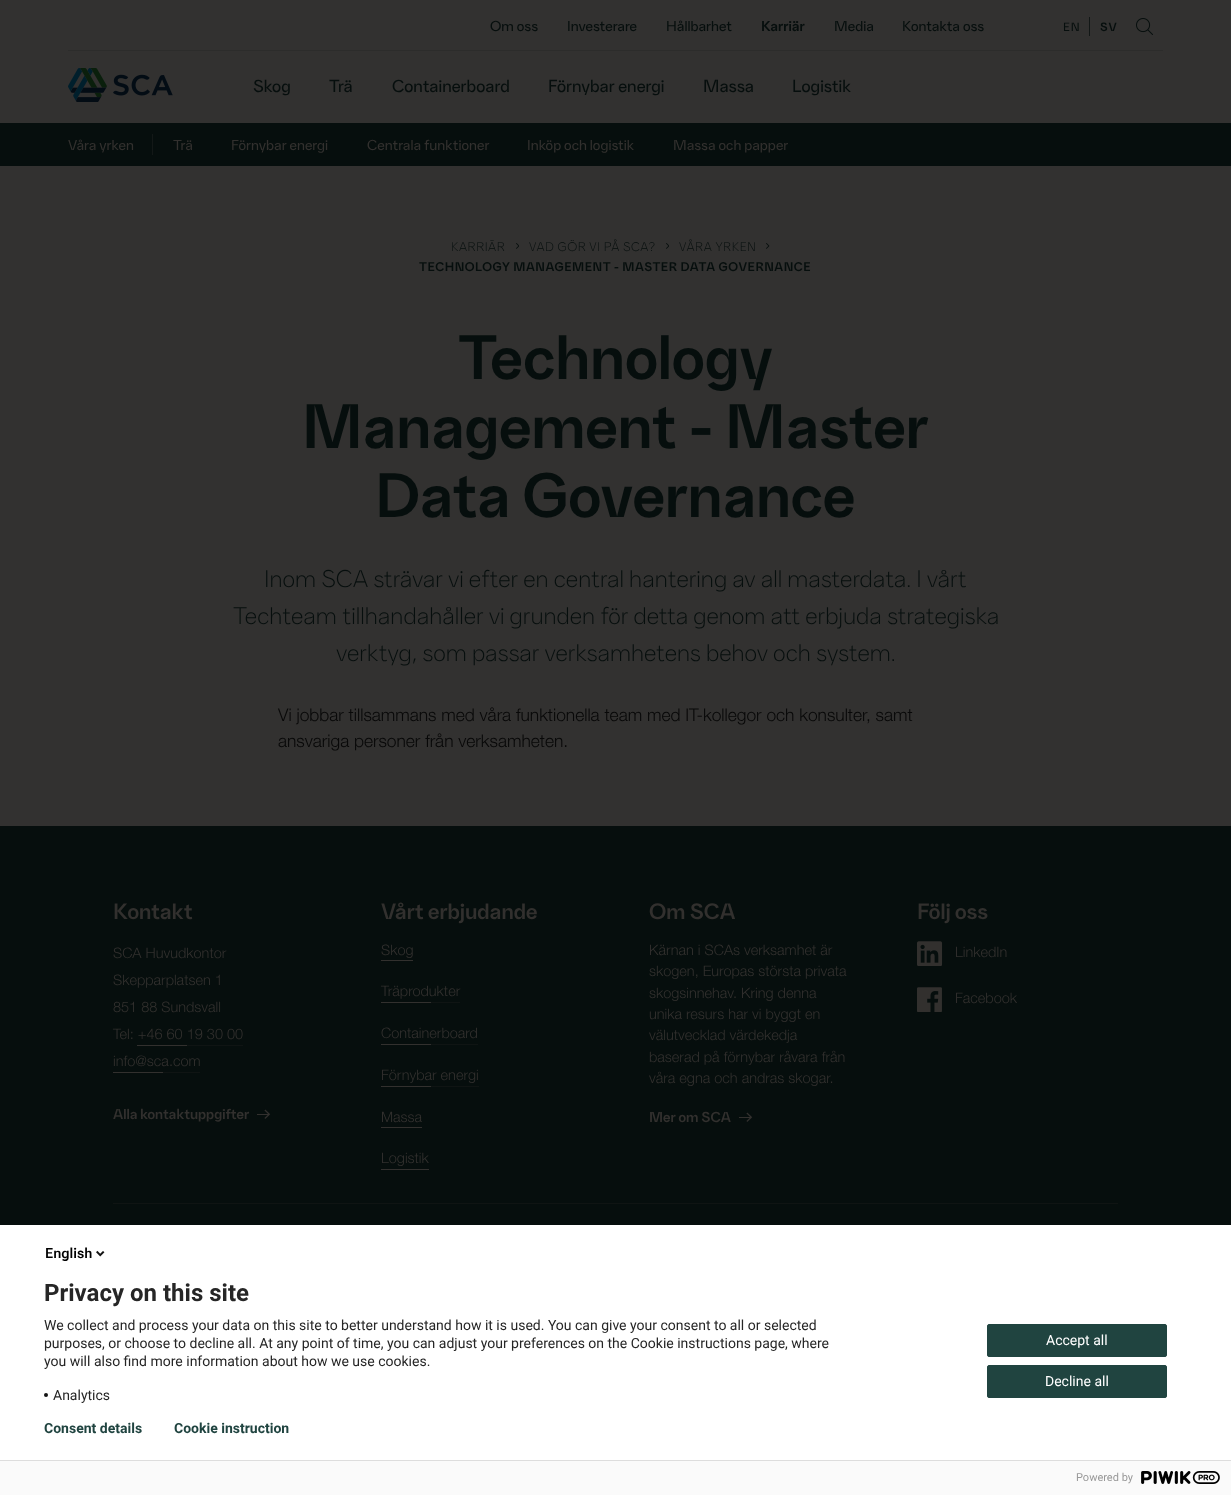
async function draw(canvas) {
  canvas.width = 1231
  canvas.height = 1495
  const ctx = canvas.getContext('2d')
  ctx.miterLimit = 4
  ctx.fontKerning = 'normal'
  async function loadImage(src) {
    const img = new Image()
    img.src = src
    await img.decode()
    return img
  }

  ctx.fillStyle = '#323130'
  ctx.fillRect(0, 0, 1231, 1495)
  ctx.fillStyle = '#2c2c2b'
  ctx.fillRect(68, 50, 1095, 1)
  ctx.font = '500 14.5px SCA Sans'
  ctx.fillStyle = '#060e0d'
  ctx.fillText('Om oss', 490, 31)
  ctx.fillText('Investerare', 567, 31)
  ctx.fillText('Hållbarhet', 666, 31)
  ctx.font = 'bold 14.5px SCA Sans'
  ctx.fillText('Karriär', 761, 31)
  ctx.font = '500 14.5px SCA Sans'
  ctx.fillText('Media', 834, 31)
  ctx.fillText('Kontakta oss', 902, 31)
  ctx.fillStyle = '#121716'
  ctx.fillRect(1089, 17, 1, 19)
  ctx.letterSpacing = '1px'
  ctx.font = '500 12px SCA Sans'
  ctx.fillStyle = '#060e0d'
  ctx.fillText('EN', 1063, 31)
  ctx.font = 'bold 12px SCA Sans'
  ctx.fillText('SV', 1100, 31)
  ctx.drawImage(await loadImage('image0.png'), 1136, 18, 17, 17)
  ctx.drawImage(await loadImage('image1.png'), 68, 68, 105, 34)
  ctx.letterSpacing = '0px'
  ctx.font = '500 17.4px SCA Sans'
  ctx.fillText('Skog', 253, 92)
  ctx.fillText('Trä', 329, 92)
  ctx.fillText('Containerboard', 392, 92)
  ctx.fillText('Förnybar energi', 548, 92)
  ctx.fillText('Massa', 703, 92)
  ctx.fillText('Logistik', 792, 92)
  ctx.fillRect(0, 123, 1231, 43)
  ctx.font = '500 14.5px SCA Sans'
  ctx.fillStyle = '#32302e'
  ctx.fillText('Våra yrken', 68, 150)
  ctx.fillStyle = '#131817'
  ctx.fillRect(152, 134, 1, 21)
  ctx.fillStyle = '#32302e'
  ctx.fillText('Trä', 173, 150)
  ctx.fillText('Förnybar energi', 231, 150)
  ctx.fillText('Centrala funktioner', 367, 150)
  ctx.fillText('Inköp och logistik', 527, 150)
  ctx.fillText('Massa och papper', 673, 150)
  ctx.letterSpacing = '0.5px'
  ctx.font = '300 12.55px SCA Sans'
  ctx.fillStyle = '#060e0d'
  ctx.fillText('KARRIÄR', 451, 251)
  ctx.drawImage(await loadImage('image2.png'), 516, 243, 3, 6)
  ctx.fillText('VAD GÖR VI PÅ SCA?', 529, 251)
  ctx.drawImage(await loadImage('image2.png'), 666, 243, 3, 6)
  ctx.fillText('VÅRA YRKEN', 679, 251)
  ctx.drawImage(await loadImage('image3.png'), 766, 243, 4, 6)
  ctx.font = 'bold 12.55px SCA Sans'
  ctx.fillText('TECHNOLOGY MANAGEMENT - MASTER DATA GOVERNANCE', 419, 271)
  ctx.letterSpacing = '0px'
  ctx.font = 'bold 62.75px SCA Sans'
  ctx.fillText('Technology', 458, 379)
  ctx.fillText('Management - Master', 302, 448)
  ctx.fillText('Data Governance', 375, 517)
  ctx.font = '300 24.15px SCA Sans'
  ctx.fillText('Inom SCA strävar vi efter en central hantering av all masterdata. I vårt', 264, 587)
  ctx.fillText('Techteam tillhandahåller vi grunden för detta genom att erbjuda strategiska', 233, 624)
  ctx.fillText('verktyg, som passar verksamhetens behov och system.', 336, 661)
  ctx.font = '300 17.4px Helvetica Neue'
  ctx.fillStyle = '#080808'
  ctx.fillText('Vi jobbar tillsammans med våra funktionella team med IT-kollegor och konsulter, samt', 278, 721)
  ctx.fillText('ansvariga personer från verksamheten.', 278, 747)
  ctx.fillStyle = '#060e0d'
  ctx.fillRect(0, 826, 1231, 399)
  ctx.fillStyle = '#0f1413'
  ctx.fillRect(113, 1203, 1005, 1)
  ctx.font = 'bold 22.25px SCA Sans'
  ctx.fillStyle = '#32302e'
  ctx.fillText('Kontakt', 113, 919)
  ctx.font = '300 14.5px Helvetica Neue'
  ctx.fillText('SCA Huvudkontor', 113, 958)
  ctx.fillText('Skepparplatsen 1', 113, 985)
  ctx.fillText('851 88 Sundsvall', 113, 1012)
  ctx.fillText('Tel: +46 60 19 30 00', 113, 1039)
  ctx.fillRect(137, 1045, 50, 1)
  ctx.fillStyle = '#0f1413'
  ctx.fillRect(187, 1045, 56, 1)
  ctx.fillStyle = '#32302e'
  ctx.fillText('info@sca.com', 113, 1066)
  ctx.fillStyle = '#0f1413'
  ctx.fillRect(163, 1072, 37, 1)
  ctx.fillStyle = '#32302e'
  ctx.fillRect(113, 1072, 50, 1)
  ctx.font = 'bold 14.5px SCA Sans'
  ctx.fillText('Alla kontaktuppgifter', 113, 1119)
  ctx.drawImage(await loadImage('image4.png'), 257, 1109, 14, 10)
  ctx.font = 'bold 22.25px SCA Sans'
  ctx.fillText('Vårt erbjudande', 381, 919)
  ctx.font = '300 14.5px Helvetica Neue'
  ctx.fillText('Skog', 381, 955)
  ctx.fillRect(381, 960, 32, 1)
  ctx.fillText('Träprodukter', 381, 996)
  ctx.fillStyle = '#0f1413'
  ctx.fillRect(431, 1002, 29, 1)
  ctx.fillStyle = '#32302e'
  ctx.fillRect(381, 1002, 50, 1)
  ctx.fillText('Containerboard', 381, 1038)
  ctx.fillStyle = '#0f1413'
  ctx.fillRect(431, 1044, 47, 1)
  ctx.fillStyle = '#32302e'
  ctx.fillRect(381, 1044, 50, 1)
  ctx.fillText('Förnybar energi', 381, 1080)
  ctx.fillStyle = '#0f1413'
  ctx.fillRect(431, 1086, 48, 1)
  ctx.fillStyle = '#32302e'
  ctx.fillRect(381, 1086, 50, 1)
  ctx.fillText('Massa', 381, 1122)
  ctx.fillRect(381, 1127, 41, 1)
  ctx.fillText('Logistik', 381, 1163)
  ctx.fillRect(381, 1169, 48, 1)
  ctx.font = 'bold 22.25px SCA Sans'
  ctx.fillText('Om SCA', 649, 919)
  ctx.font = '300 14.5px Helvetica Neue'
  ctx.fillText('Kärnan i SCAs verksamhet är', 649, 955)
  ctx.fillText('skogen, Europas största privata', 649, 976)
  ctx.fillText('skogsinnehav. Kring denna', 649, 998)
  ctx.fillText('unika resurs har vi byggt en', 649, 1019)
  ctx.fillText('välutvecklad värdekedja', 649, 1040)
  ctx.fillText('baserad på förnybar råvara från', 649, 1062)
  ctx.fillText('våra egna och andras skogar.', 649, 1083)
  ctx.font = 'bold 14.5px SCA Sans'
  ctx.fillText('Mer om SCA', 649, 1122)
  ctx.drawImage(await loadImage('image4.png'), 739, 1112, 14, 10)
  ctx.font = 'bold 22.25px SCA Sans'
  ctx.fillText('Följ oss', 917, 919)
  ctx.drawImage(await loadImage('image5.png'), 917, 941, 26, 25)
  ctx.font = '300 14.5px Helvetica Neue'
  ctx.fillText('LinkedIn', 955, 957)
  ctx.drawImage(await loadImage('image6.png'), 917, 987, 25, 25)
  ctx.fillText('Facebook', 955, 1003)
  ctx.fillStyle = '#fff'
  ctx.fillRect(0, 1225, 1231, 235)
  ctx.font = '600 14px Roboto Flex'
  ctx.fillStyle = '#000'
  ctx.fillText('English', 45, 1258)
  ctx.drawImage(await loadImage('image7.png'), 96, 1250, 9, 7)
  ctx.font = 'bold 24px Roboto'
  ctx.fillStyle = '#262626'
  ctx.fillText('Privacy on this site', 44, 1301)
  ctx.font = '14px Roboto'
  ctx.fillText('We collect and process your data on this site to better understand how it is used. You can give your consent to all or selected', 44, 1330)
  ctx.fillText('purposes, or choose to decline all. At any point of time, you can adjust your preferences on the Cookie instructions page, where', 44, 1348)
  ctx.fillText('you will also find more information about how we use cookies.', 44, 1366)
  ctx.fillStyle = '#131313'
  ctx.beginPath()
  ctx.arc(46, 1395, 2, 0, 2 * Math.PI)
  ctx.fill()
  ctx.fillStyle = '#262626'
  ctx.fillText('Analytics', 53, 1400)
  ctx.fillStyle = '#204440'
  ctx.beginPath()
  ctx.roundRect(987.5, 1324.5, 179, 32, 1.5)
  ctx.fill()
  ctx.strokeStyle = '#204440'
  ctx.stroke()
  ctx.fillStyle = '#fff'
  ctx.fillText('Accept all', 1046, 1345)
  ctx.fillStyle = '#204440'
  ctx.beginPath()
  ctx.roundRect(987.5, 1365.5, 179, 32, 1.5)
  ctx.fill()
  ctx.stroke()
  ctx.fillStyle = '#fff'
  ctx.fillText('Decline all', 1045, 1386)
  ctx.font = 'bold 14px Roboto'
  ctx.fillStyle = '#204440'
  ctx.fillText('Consent details', 44, 1433)
  ctx.fillText('Cookie instruction', 174, 1433)
  ctx.fillStyle = '#fafafa'
  ctx.fillRect(0, 1461, 1231, 34)
  ctx.fillStyle = '#ddd'
  ctx.fillRect(0, 1460, 1231, 1)
  ctx.font = '11px Roboto'
  ctx.fillStyle = '#999'
  ctx.fillText('Powered by', 1076, 1481)
  ctx.drawImage(await loadImage('image8.png'), 1141, 1471, 79, 13)
}

draw(document.querySelector('canvas'))
